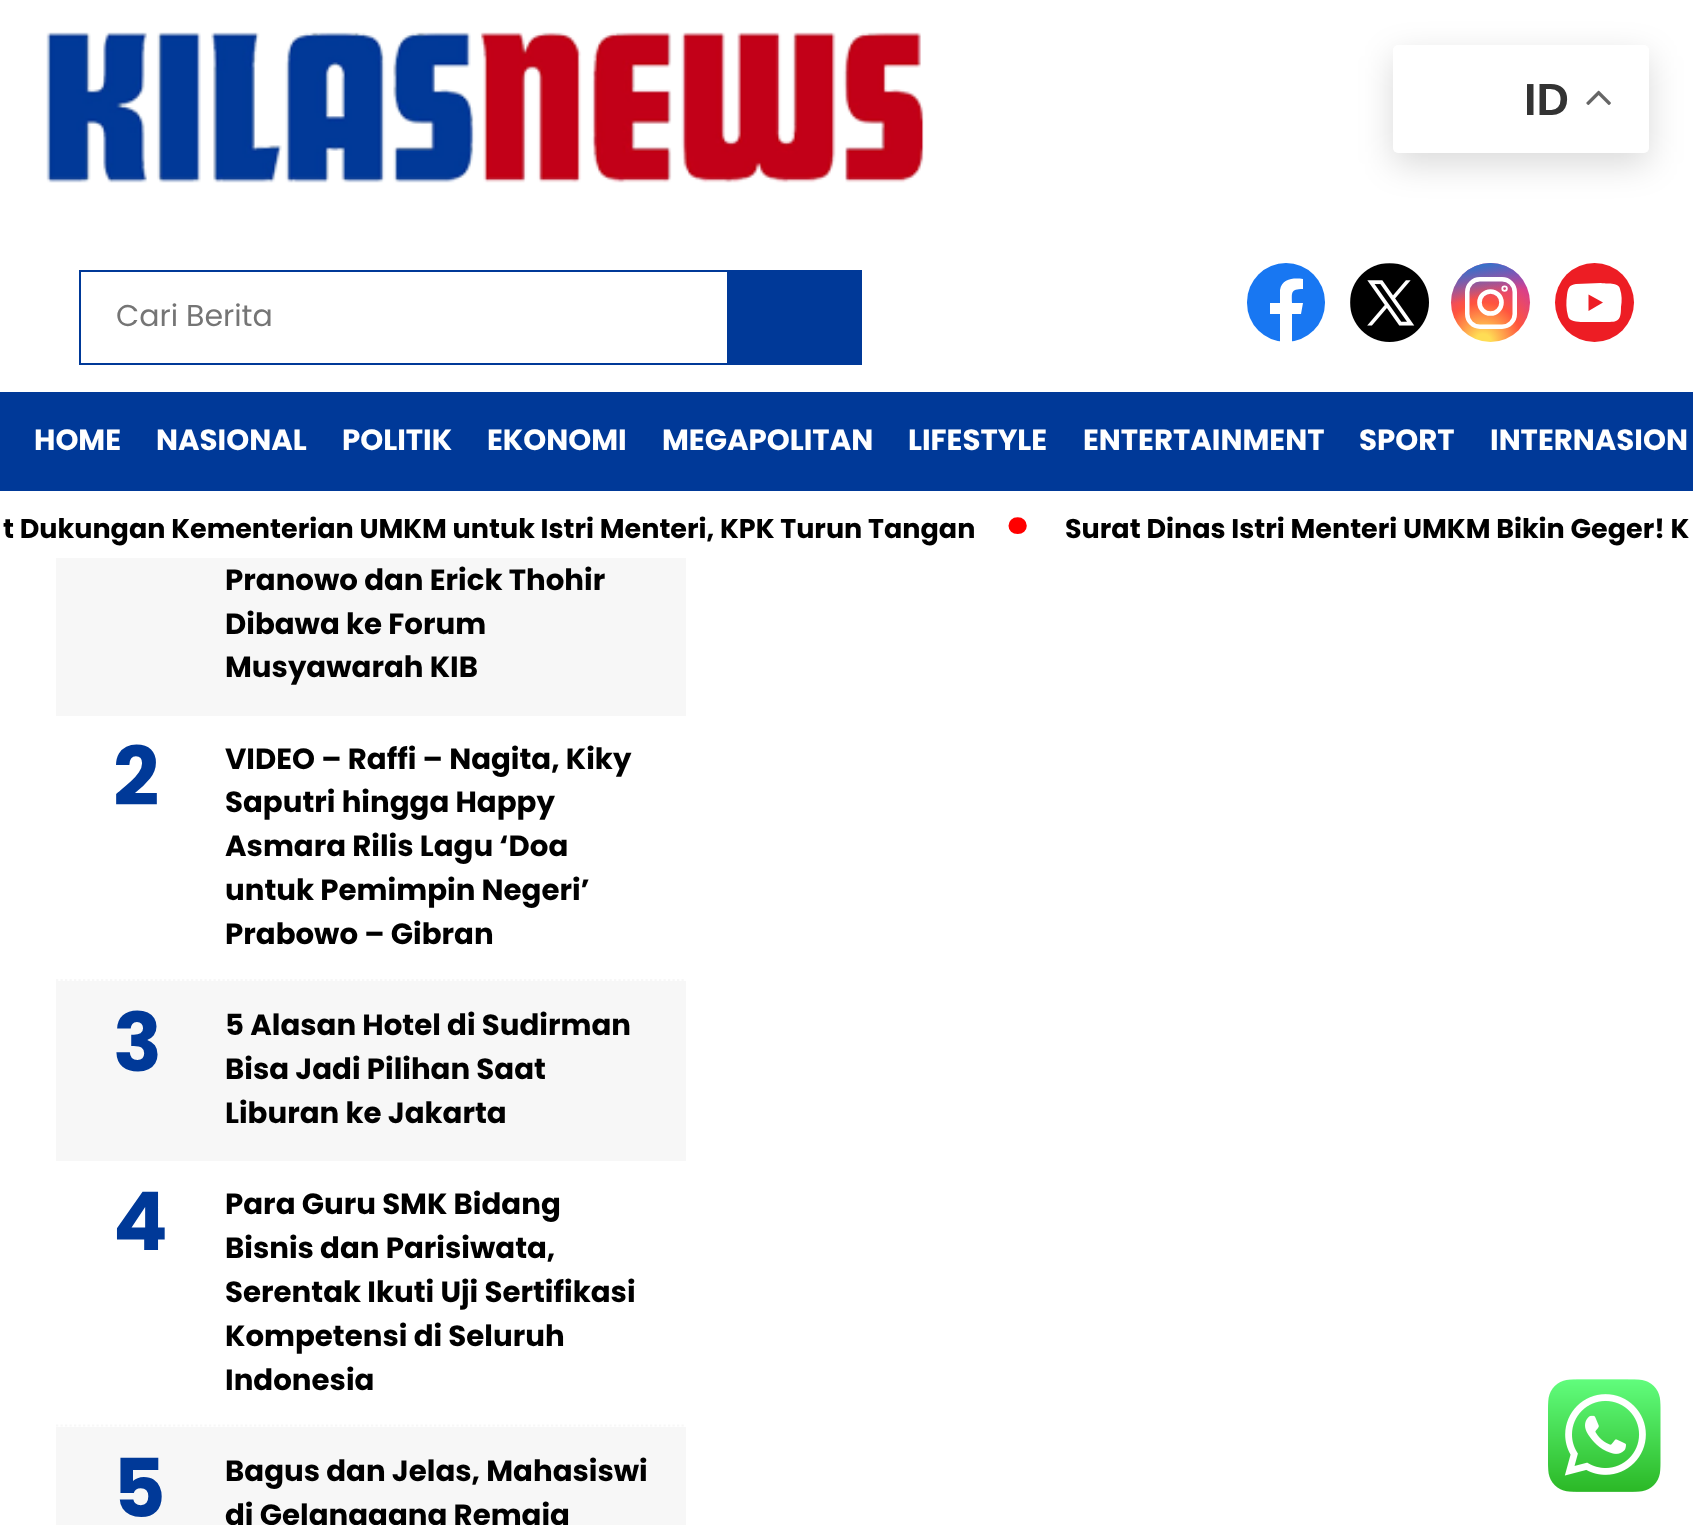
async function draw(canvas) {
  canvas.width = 1693
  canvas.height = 1525
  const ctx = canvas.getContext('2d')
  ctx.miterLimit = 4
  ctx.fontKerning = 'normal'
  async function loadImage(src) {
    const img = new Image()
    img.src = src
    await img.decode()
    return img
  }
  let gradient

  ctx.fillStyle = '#fff'
  ctx.fillRect(0, 0, 1693, 1525)
  ctx.fillStyle = '#00000026'
  ctx.filter = 'blur(17px)'
  ctx.beginPath()
  ctx.roundRect(1393, 56, 256, 108, 5)
  ctx.fill()
  ctx.filter = 'none'
  ctx.fillStyle = '#fff'
  ctx.beginPath()
  ctx.roundRect(1393, 45, 256, 108, 5)
  ctx.fill()
  ctx.font = 'bold 45px Liberation Sans'
  ctx.fillStyle = '#333'
  ctx.fillText('ID', 1524, 115)
  ctx.drawImage(await loadImage('image0.png'), 1586, 90, 25, 15)
  ctx.drawImage(await loadImage('image1.png'), 46, 32, 878, 151)
  ctx.strokeStyle = '#003998'
  ctx.lineWidth = 2
  ctx.strokeRect(80, 271, 648, 93)
  ctx.font = '30px Poppins'
  ctx.fillStyle = '#757575'
  ctx.fillText('Cari Berita', 116, 326)
  ctx.fillStyle = '#003998'
  ctx.fillRect(729, 270, 133, 95)
  ctx.fillStyle = '#1877f2'
  ctx.beginPath()
  ctx.roundRect(1247, 263, 78, 79, 39)
  ctx.fill()
  ctx.fillStyle = '#fff'
  ctx.beginPath()
  ctx.moveTo(1301, 314)
  ctx.lineTo(1292, 314)
  ctx.lineTo(1292, 342)
  ctx.bezierCurveTo(1288, 342, 1284, 342, 1280, 342)
  ctx.lineTo(1280, 314)
  ctx.lineTo(1270, 314)
  ctx.lineTo(1270, 303)
  ctx.lineTo(1280, 303)
  ctx.lineTo(1280, 290)
  ctx.bezierCurveTo(1282, 278, 1294, 278, 1303, 279)
  ctx.lineTo(1303, 289)
  ctx.bezierCurveTo(1290, 289, 1292, 293, 1292, 303)
  ctx.lineTo(1303, 303)
  ctx.closePath()
  ctx.fill()
  ctx.drawImage(await loadImage('image2.png'), 1350, 263, 79, 79)
  gradient = ctx.createRadialGradient(1483, 342, 0, 1483, 342, 79)
  gradient.addColorStop(0.1, '#fd5')
  gradient.addColorStop(0.5, '#ff543e')
  gradient.addColorStop(1, '#c837ab')
  ctx.fillStyle = gradient
  ctx.beginPath()
  ctx.arc(1490.5, 302.5, 39.5, 0, 2 * Math.PI)
  ctx.fill()
  gradient = ctx.createLinearGradient(1451, 263, 1467, 342)
  gradient.addColorStop(0.1, '#3771c8')
  gradient.addColorStop(0.5, '#3771c800')
  ctx.fillStyle = gradient
  ctx.beginPath()
  ctx.arc(1490.5, 302.5, 39.5, 0, 2 * Math.PI)
  ctx.fill()
  ctx.beginPath()
  ctx.roundRect(1467.25, 279.25, 47.5, 47.5, 12.75)
  ctx.strokeStyle = '#fff'
  ctx.lineWidth = 4.5
  ctx.stroke()
  ctx.beginPath()
  ctx.arc(1490.5, 302.5, 11, 0, 2 * Math.PI)
  ctx.lineWidth = 4.6
  ctx.stroke()
  ctx.beginPath()
  ctx.arc(1504.6, 288.6, 0.9, 0, 2 * Math.PI)
  ctx.stroke()
  ctx.fillStyle = '#ed1d24'
  ctx.beginPath()
  ctx.arc(1594.5, 302.5, 39.5, 0, 2 * Math.PI)
  ctx.fill()
  ctx.fillStyle = '#fff'
  ctx.beginPath()
  ctx.moveTo(1620, 289)
  ctx.bezierCurveTo(1619, 282, 1606, 284, 1601, 283)
  ctx.lineTo(1576, 284)
  ctx.bezierCurveTo(1569, 285, 1568, 288, 1567, 295)
  ctx.bezierCurveTo(1566, 302, 1566, 309, 1568, 316)
  ctx.bezierCurveTo(1569, 323, 1583, 322, 1587, 322)
  ctx.lineTo(1601, 322)
  ctx.bezierCurveTo(1617, 322, 1621, 323, 1621, 307)
  ctx.bezierCurveTo(1622, 301, 1622, 295, 1620, 289)
  ctx.fill()
  ctx.fillStyle = '#ed1d24'
  ctx.beginPath()
  ctx.moveTo(1588.5, 294.5)
  ctx.lineTo(1588.5, 311)
  ctx.lineTo(1603, 302.5)
  ctx.fill()
  ctx.fillStyle = '#003998'
  ctx.fillRect(0, 392, 1693, 99)
  ctx.font = 'bold 29.25px Poppins'
  ctx.fillStyle = '#fff'
  ctx.fillText('HOME', 34, 450)
  ctx.fillText('NASIONAL', 156, 450)
  ctx.fillText('POLITIK', 342, 450)
  ctx.fillText('EKONOMI', 487, 450)
  ctx.fillText('MEGAPOLITAN', 662, 450)
  ctx.fillText('LIFESTYLE', 908, 450)
  ctx.fillText('ENTERTAINMENT', 1083, 450)
  ctx.fillText('SPORT', 1359, 450)
  ctx.fillText('INTERNASION', 1490, 450)
  ctx.font = 'bold 27px Poppins'
  ctx.fillStyle = '#000'
  ctx.fillText('t Dukungan Kementerian UMKM untuk Istri Menteri, KPK Turun Tangan', 3, 538)
  ctx.font = 'bold 90px Poppins'
  ctx.fillStyle = '#f00'
  ctx.fillText('·', 1004, 554)
  ctx.font = 'bold 27px Poppins'
  ctx.fillStyle = '#000'
  ctx.fillText('Surat Dinas Istri Menteri UMKM Bikin Geger! K', 1065, 538)
  ctx.fillStyle = '#f7f7f7'
  ctx.fillRect(56, 558, 630, 158)
  ctx.font = 'bold 29.25px Poppins'
  ctx.fillStyle = '#000'
  ctx.fillText('Pranowo dan Erick Thohir', 225, 590)
  ctx.fillText('Dibawa ke Forum', 225, 634)
  ctx.fillText('Musyawarah KIB', 225, 677)
  ctx.beginPath()
  ctx.moveTo(56, 980)
  ctx.lineTo(686, 980)
  ctx.strokeStyle = '#f7f7f7'
  ctx.lineWidth = 2.2
  ctx.setLineDash([2.25, 2.25])
  ctx.stroke()
  ctx.font = 'bold 81px Poppins'
  ctx.fillStyle = '#003998'
  ctx.fillText('2', 113, 805)
  ctx.font = 'bold 29.25px Poppins'
  ctx.fillStyle = '#000'
  ctx.fillText('VIDEO – Raffi – Nagita, Kiky', 225, 769)
  ctx.fillText('Saputri hingga Happy', 225, 812)
  ctx.fillText('Asmara Rilis Lagu ‘Doa', 225, 856)
  ctx.fillText('untuk Pemimpin Negeri’', 225, 900)
  ctx.fillText('Prabowo – Gibran', 225, 944)
  ctx.fillStyle = '#f7f7f7'
  ctx.fillRect(56, 981, 630, 180)
  ctx.font = 'bold 81px Poppins'
  ctx.fillStyle = '#003998'
  ctx.fillText('3', 113, 1071)
  ctx.font = 'bold 29.25px Poppins'
  ctx.fillStyle = '#000'
  ctx.fillText('5 Alasan Hotel di Sudirman', 225, 1035)
  ctx.fillText('Bisa Jadi Pilihan Saat', 225, 1079)
  ctx.fillText('Liburan ke Jakarta', 225, 1123)
  ctx.beginPath()
  ctx.moveTo(56, 1425.5)
  ctx.lineTo(686, 1425.5)
  ctx.stroke()
  ctx.font = 'bold 81px Poppins'
  ctx.fillStyle = '#003998'
  ctx.fillText('4', 113, 1250)
  ctx.font = 'bold 29.25px Poppins'
  ctx.fillStyle = '#000'
  ctx.fillText('Para Guru SMK Bidang', 225, 1214)
  ctx.fillText('Bisnis dan Parisiwata,', 225, 1258)
  ctx.fillText('Serentak Ikuti Uji Sertifikasi', 225, 1302)
  ctx.fillText('Kompetensi di Seluruh', 225, 1346)
  ctx.fillText('Indonesia', 225, 1390)
  ctx.fillStyle = '#f7f7f7'
  ctx.fillRect(56, 1427, 630, 98)
  ctx.font = 'bold 81px Poppins'
  ctx.fillStyle = '#003998'
  ctx.fillText('5', 113, 1517)
  ctx.font = 'bold 29.25px Poppins'
  ctx.fillStyle = '#000'
  ctx.fillText('Bagus dan Jelas, Mahasiswi', 225, 1481)
  ctx.fillText('di Gelanggang Remaja', 225, 1525)
  ctx.drawImage(await loadImage('image3.png'), 1548, 1379, 113, 113)
}

draw(document.querySelector('canvas'))
